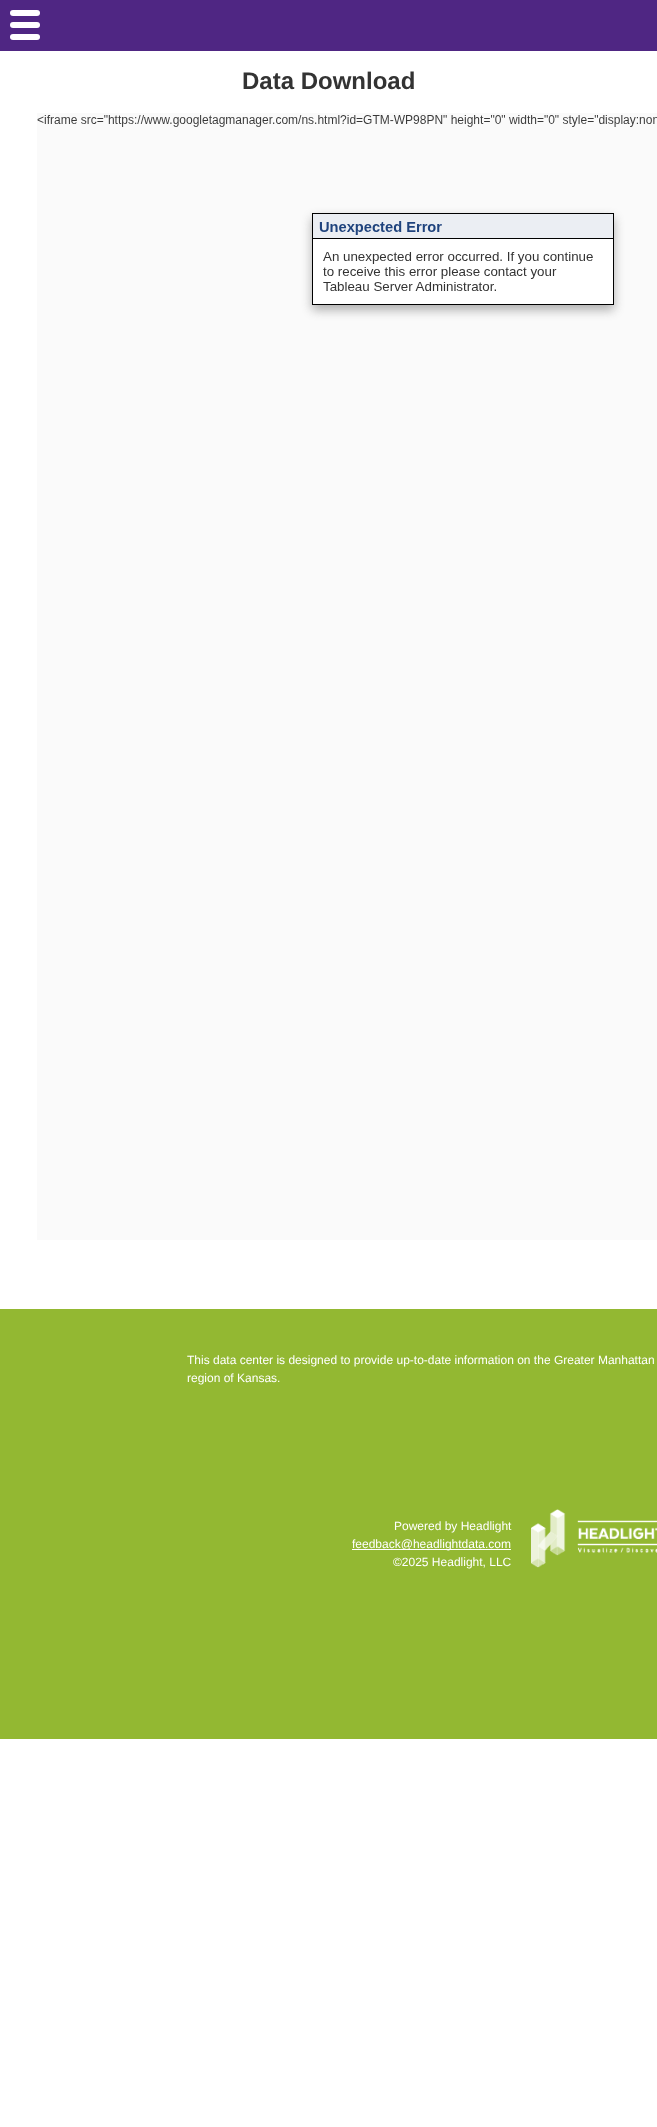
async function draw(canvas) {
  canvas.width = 657
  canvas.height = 2127
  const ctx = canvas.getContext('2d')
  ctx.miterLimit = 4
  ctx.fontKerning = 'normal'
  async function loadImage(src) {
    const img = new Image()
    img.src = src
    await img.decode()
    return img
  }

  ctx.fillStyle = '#fff'
  ctx.fillRect(0, 0, 657, 2127)
  ctx.fillStyle = '#4f2683'
  ctx.fillRect(0, 0, 657, 51)
  ctx.fillStyle = '#fff'
  ctx.beginPath()
  ctx.roundRect(10, 10, 30, 6, 3)
  ctx.fill()
  ctx.beginPath()
  ctx.roundRect(10, 22, 30, 6, 3)
  ctx.fill()
  ctx.beginPath()
  ctx.roundRect(10, 34, 30, 6, 3)
  ctx.fill()
  ctx.font = 'bold 24px Liberation Sans'
  ctx.fillStyle = '#333'
  ctx.fillText('Data Download', 242, 89)
  ctx.drawImage(await loadImage('image0.png'), 37, 113, 620, 1127)
  ctx.fillStyle = '#93b832'
  ctx.fillRect(0, 1309, 657, 430)
  ctx.font = '12px Liberation Sans'
  ctx.fillStyle = '#fff'
  ctx.fillText('This data center is designed to provide up-to-date information on the Greater Manhattan', 187, 1364)
  ctx.fillText('region of Kansas.', 187, 1382)
  ctx.fillText('Powered by Headlight', 394, 1530)
  ctx.fillRect(352, 1549, 159, 1)
  ctx.fillText('feedback@headlightdata.com', 352, 1548)
  ctx.fillText('©2025 Headlight, LLC', 393, 1566)
  ctx.drawImage(await loadImage('image1.png'), 531, 1509, 126, 59)
}

draw(document.querySelector('canvas'))
